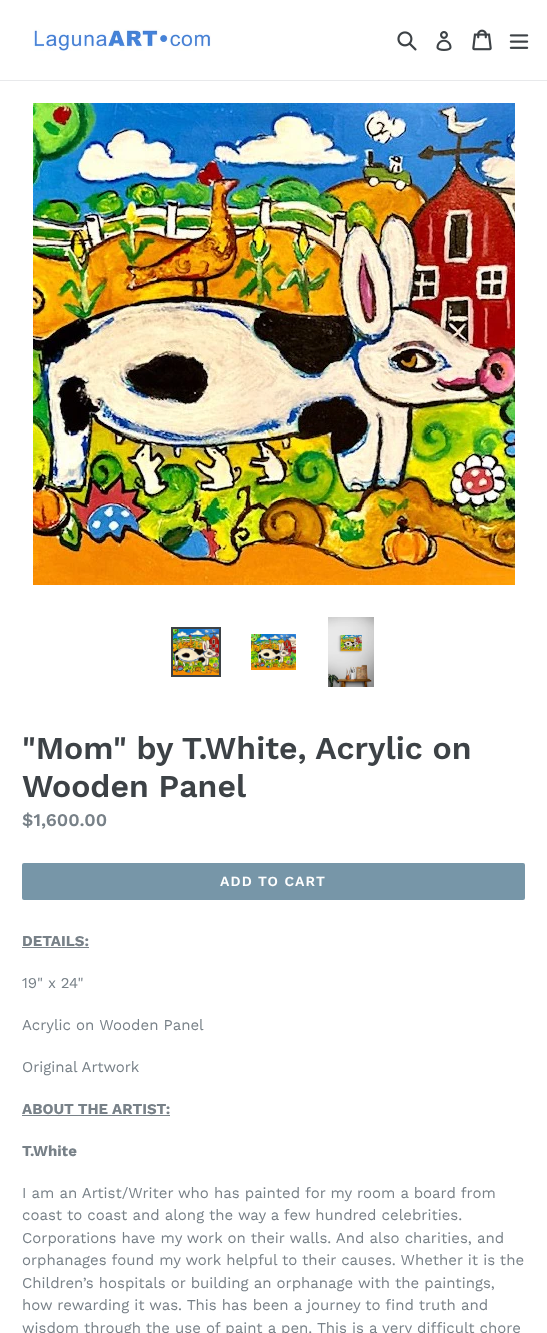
async function draw(canvas) {
  canvas.width = 547
  canvas.height = 1333
  const ctx = canvas.getContext('2d')
  ctx.miterLimit = 4
  ctx.fontKerning = 'normal'
  async function loadImage(src) {
    const img = new Image()
    img.src = src
    await img.decode()
    return img
  }

  ctx.fillStyle = '#fff'
  ctx.fillRect(0, 0, 547, 1333)
  ctx.fillStyle = '#e8e9eb'
  ctx.fillRect(0, 80, 547, 1)
  ctx.drawImage(await loadImage('image0.png'), 33, 29, 178, 22)
  ctx.drawImage(await loadImage('image1.png'), 397, 31, 20, 20)
  ctx.drawImage(await loadImage('image2.png'), 436, 31, 16, 20)
  ctx.drawImage(await loadImage('image3.png'), 472, 29, 20, 22)
  ctx.drawImage(await loadImage('image4.png'), 509, 34, 20, 15)
  ctx.drawImage(await loadImage('image5.png'), 33, 103, 482, 482)
  ctx.strokeStyle = '#3d4246'
  ctx.lineWidth = 2
  ctx.strokeRect(172, 628, 48, 48)
  ctx.drawImage(await loadImage('image6.png'), 173, 629, 46, 46)
  ctx.drawImage(await loadImage('image7.png'), 251, 634, 45, 36)
  ctx.drawImage(await loadImage('image8.png'), 328, 617, 46, 70)
  ctx.font = '600 32px Work Sans'
  ctx.fillStyle = '#3d4246'
  ctx.fillText('"Mom" by T.White, Acrylic on', 22, 759)
  ctx.fillText('Wooden Panel', 22, 797)
  ctx.font = '600 18px Work Sans'
  ctx.fillStyle = '#788188'
  ctx.fillText('$1,600.00', 22, 826)
  ctx.fillStyle = '#7796a8'
  ctx.beginPath()
  ctx.roundRect(22, 863, 503, 37, 2)
  ctx.fill()
  ctx.letterSpacing = '1.1px'
  ctx.font = '600 14px Work Sans'
  ctx.fillStyle = '#fff'
  ctx.fillText('ADD TO CART', 220, 886)
  ctx.letterSpacing = '0px'
  ctx.font = 'bold 15px Work Sans'
  ctx.fillStyle = '#788188'
  ctx.fillText('DETAILS:', 22, 946)
  ctx.fillRect(22, 947, 67, 1)
  ctx.font = '15px Work Sans'
  ctx.fillText('19" x 24"', 22, 988)
  ctx.fillText('Acrylic on Wooden Panel', 22, 1030)
  ctx.fillText('Original Artwork', 22, 1072)
  ctx.font = 'bold 15px Work Sans'
  ctx.fillText('ABOUT THE ARTIST:', 22, 1114)
  ctx.fillRect(22, 1115, 148, 1)
  ctx.fillText('T.White', 22, 1156)
  ctx.font = '15px Work Sans'
  ctx.fillText('I am an Artist/Writer who has painted for my room a board from', 22, 1198)
  ctx.fillText('coast to coast and along the way a few hundred celebrities.', 22, 1220)
  ctx.fillText('Corporations have my work on their walls. And also charities, and', 22, 1243)
  ctx.fillText('orphanages found my work helpful to their causes. Whether it is the', 22, 1265)
  ctx.fillText('Children’s hospitals or building an orphanage with the paintings,', 22, 1288)
  ctx.fillText('how rewarding it was. This has been a journey to find truth and', 22, 1310)
  ctx.fillText('wisdom through the use of paint a pen. This is a very difficult chore', 22, 1333)
}

draw(document.querySelector('canvas'))
